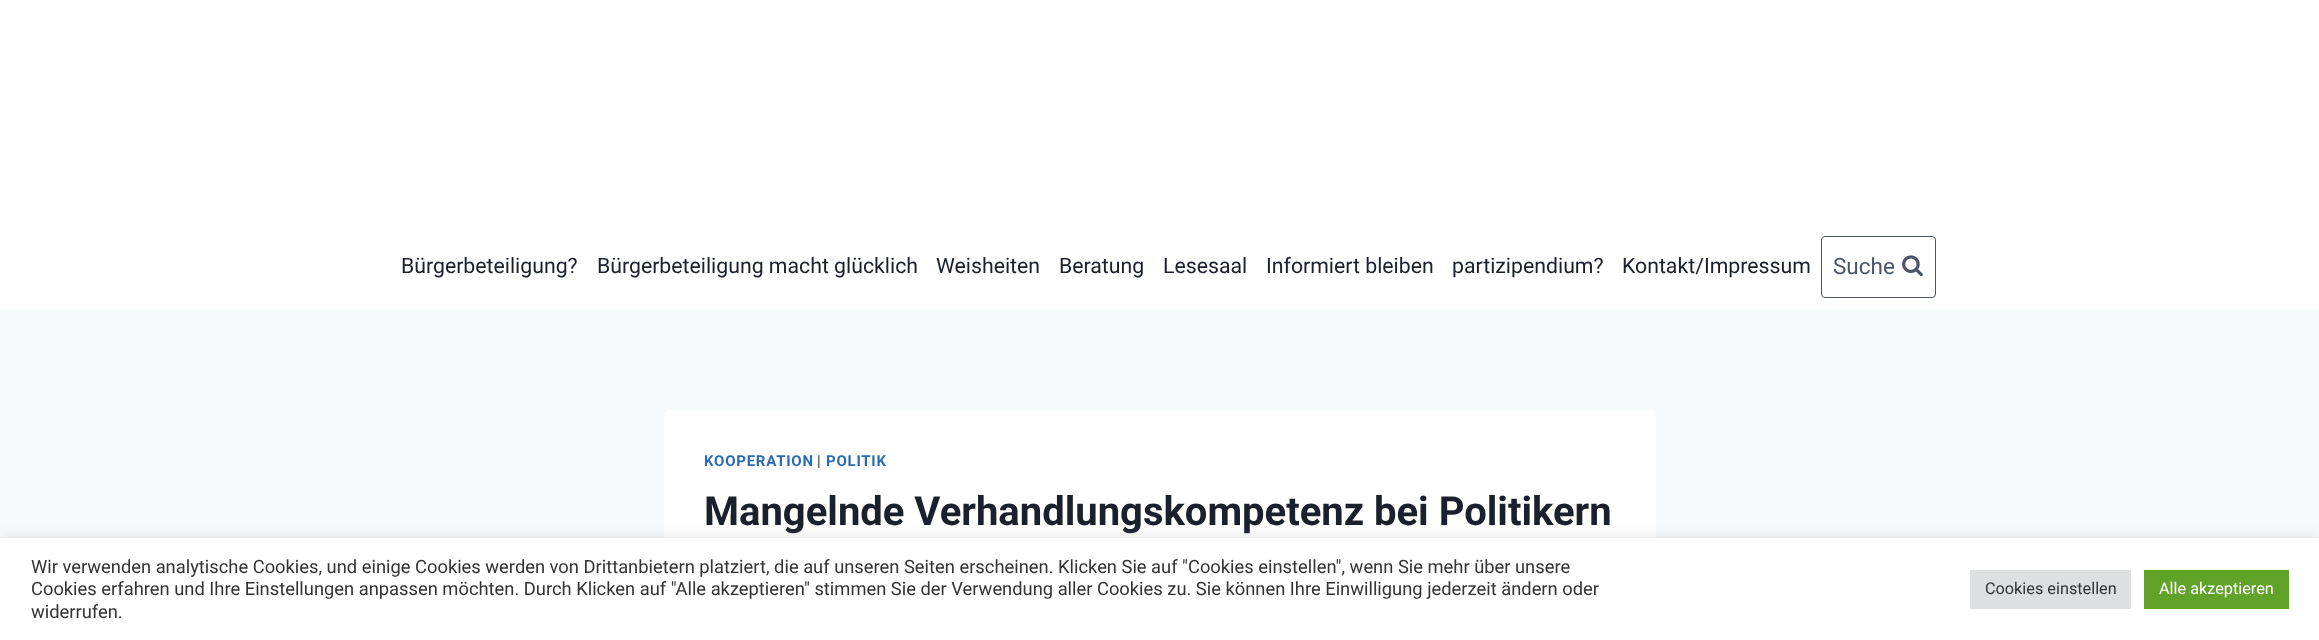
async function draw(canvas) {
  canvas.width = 2319
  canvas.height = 640
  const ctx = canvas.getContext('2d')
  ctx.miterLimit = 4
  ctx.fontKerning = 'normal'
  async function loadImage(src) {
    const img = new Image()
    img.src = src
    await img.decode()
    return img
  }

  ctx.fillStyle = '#f7fafc'
  ctx.fillRect(0, 0, 2319, 640)
  ctx.fillStyle = '#fff'
  ctx.fillRect(0, 0, 2319, 310)
  ctx.font = '21.25px Roboto'
  ctx.fillStyle = '#1a202c'
  ctx.fillText('Bürgerbeteiligung?', 401, 273)
  ctx.fillText('Bürgerbeteiligung macht glücklich', 597, 273)
  ctx.fillText('Weisheiten', 936, 273)
  ctx.fillText('Beratung', 1059, 273)
  ctx.fillText('Lesesaal', 1163, 273)
  ctx.fillText('Informiert bleiben', 1266, 273)
  ctx.fillText('partizipendium?', 1452, 273)
  ctx.fillText('Kontakt/Impressum', 1622, 273)
  ctx.beginPath()
  ctx.roundRect(1821.5, 236.5, 114, 61, 3.5)
  ctx.strokeStyle = '#4a5568'
  ctx.stroke()
  ctx.font = '22.5px Roboto'
  ctx.fillStyle = '#4a5568'
  ctx.fillText('Suche', 1833, 274)
  ctx.drawImage(await loadImage('image0.png'), 1902, 255, 21, 21)
  ctx.fillStyle = '#fff'
  ctx.beginPath()
  ctx.roundRect(664, 410, 992, 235, 5)
  ctx.fill()
  ctx.letterSpacing = '0.75px'
  ctx.font = 'bold 15px Roboto'
  ctx.fillStyle = '#2b6cb0'
  ctx.fillText('KOOPERATION', 704, 466)
  ctx.font = '15px Roboto'
  ctx.fillStyle = '#2d3748'
  ctx.fillText('|', 817, 466)
  ctx.font = 'bold 15px Roboto'
  ctx.fillStyle = '#2b6cb0'
  ctx.fillText('POLITIK', 826, 466)
  ctx.letterSpacing = '0px'
  ctx.font = 'bold 40px Roboto'
  ctx.fillStyle = '#1a202c'
  ctx.fillText('Mangelnde Verhandlungskompetenz bei Politikern', 704, 525)
  ctx.fillStyle = '#acabab4d'
  ctx.filter = 'blur(6px)'
  ctx.beginPath()
  ctx.rect(0, 536, 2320, 103)
  ctx.fill()
  ctx.filter = 'none'
  ctx.fillStyle = '#fff'
  ctx.fillRect(0, 538, 2319, 102)
  ctx.font = '18.33px Roboto'
  ctx.fillStyle = '#333'
  ctx.fillText('Wir verwenden analytische Cookies, und einige Cookies werden von Drittanbietern platziert, die auf unseren Seiten erscheinen. Klicken Sie auf "Cookies einstellen", wenn Sie mehr über unsere', 31, 573)
  ctx.fillText('Cookies erfahren und Ihre Einstellungen anpassen möchten. Durch Klicken auf "Alle akzeptieren" stimmen Sie der Verwendung aller Cookies zu. Sie können Ihre Einwilligung jederzeit ändern oder', 31, 595)
  ctx.fillText('widerrufen.', 31, 618)
  ctx.fillStyle = '#dedfe0'
  ctx.fillRect(1970, 570, 161, 39)
  ctx.font = '16.25px Roboto'
  ctx.fillStyle = '#333'
  ctx.fillText('Cookies einstellen', 1985, 594)
  ctx.fillStyle = '#61a229'
  ctx.fillRect(2144, 570, 145, 39)
  ctx.fillStyle = '#fff'
  ctx.fillText('Alle akzeptieren', 2159, 594)
}

draw(document.querySelector('canvas'))
